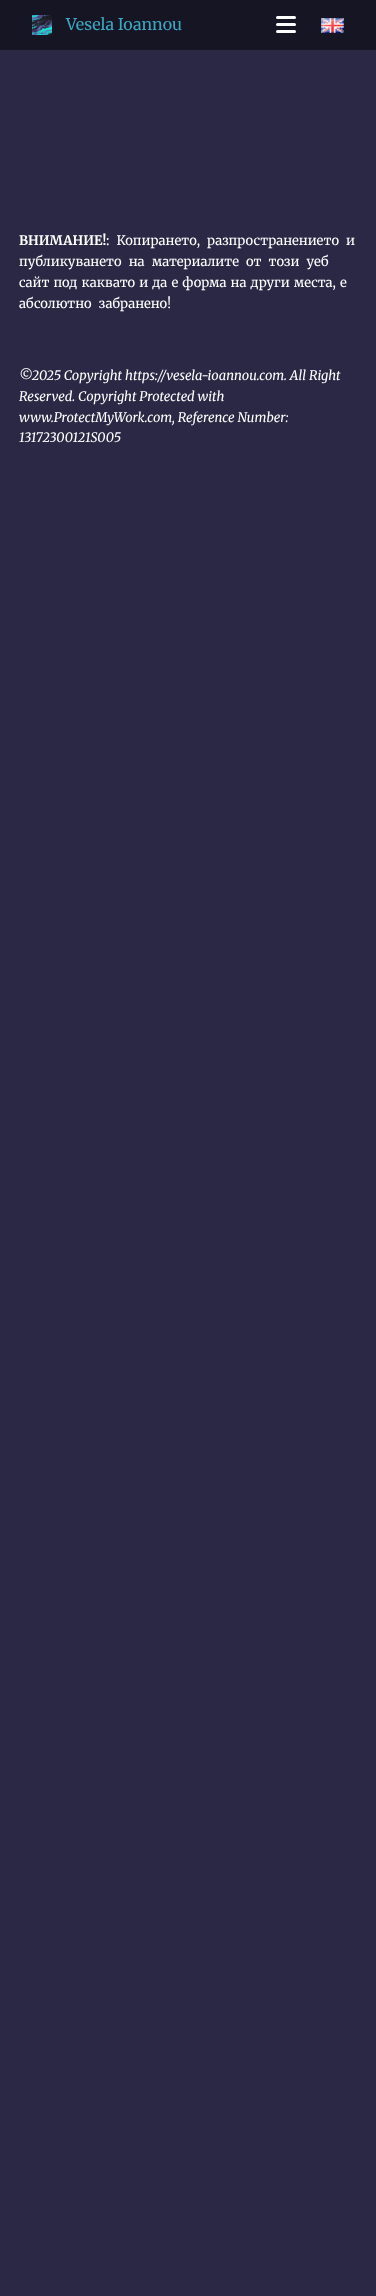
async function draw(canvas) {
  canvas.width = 376
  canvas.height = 2296
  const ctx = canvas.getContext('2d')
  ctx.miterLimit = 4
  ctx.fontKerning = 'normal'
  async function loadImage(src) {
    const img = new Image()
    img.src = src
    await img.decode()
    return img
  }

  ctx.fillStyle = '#2a2844'
  ctx.fillRect(0, 0, 376, 2296)
  ctx.fillStyle = '#161524'
  ctx.fillRect(0, 0, 376, 50)
  ctx.drawImage(await loadImage('image0.png'), 32, 15, 20, 20)
  ctx.font = '16px Merriweather'
  ctx.fillStyle = '#3da7c3'
  ctx.fillText('Vesela Ioannou', 66, 30)
  ctx.fillStyle = '#fff'
  ctx.beginPath()
  ctx.roundRect(276, 23, 20, 3, 1.5)
  ctx.fill()
  ctx.beginPath()
  ctx.roundRect(276, 16, 20, 3, 1.5)
  ctx.fill()
  ctx.beginPath()
  ctx.roundRect(276, 30, 20, 3, 1.5)
  ctx.fill()
  ctx.drawImage(await loadImage('image1.png'), 321, 18, 23, 15)
  ctx.font = 'bold 13px Merriweather'
  ctx.fillText('ВНИМАНИЕ!', 19, 245)
  ctx.wordSpacing = '4px'
  ctx.font = '13px Merriweather'
  ctx.fillText(': Копирането, разпространението и', 106, 245)
  ctx.fillText('публикуването на материалите от този уеб', 19, 266)
  ctx.wordSpacing = '1px'
  ctx.fillText('сайт под каквато и да е форма на други места, е', 19, 287)
  ctx.wordSpacing = '4px'
  ctx.fillText('абсолютно забранено!', 19, 308)
  ctx.wordSpacing = '0px'
  ctx.font = 'italic 300 13px Merriweather'
  ctx.fillText('©2025 Copyright https://vesela-ioannou.com. All Right', 19, 380)
  ctx.fillText('Reserved. Copyright Protected with', 19, 401)
  ctx.fillText('www.ProtectMyWork.com, Reference Number:', 19, 422)
  ctx.fillText('13172300121S005', 19, 442)
}

draw(document.querySelector('canvas'))
